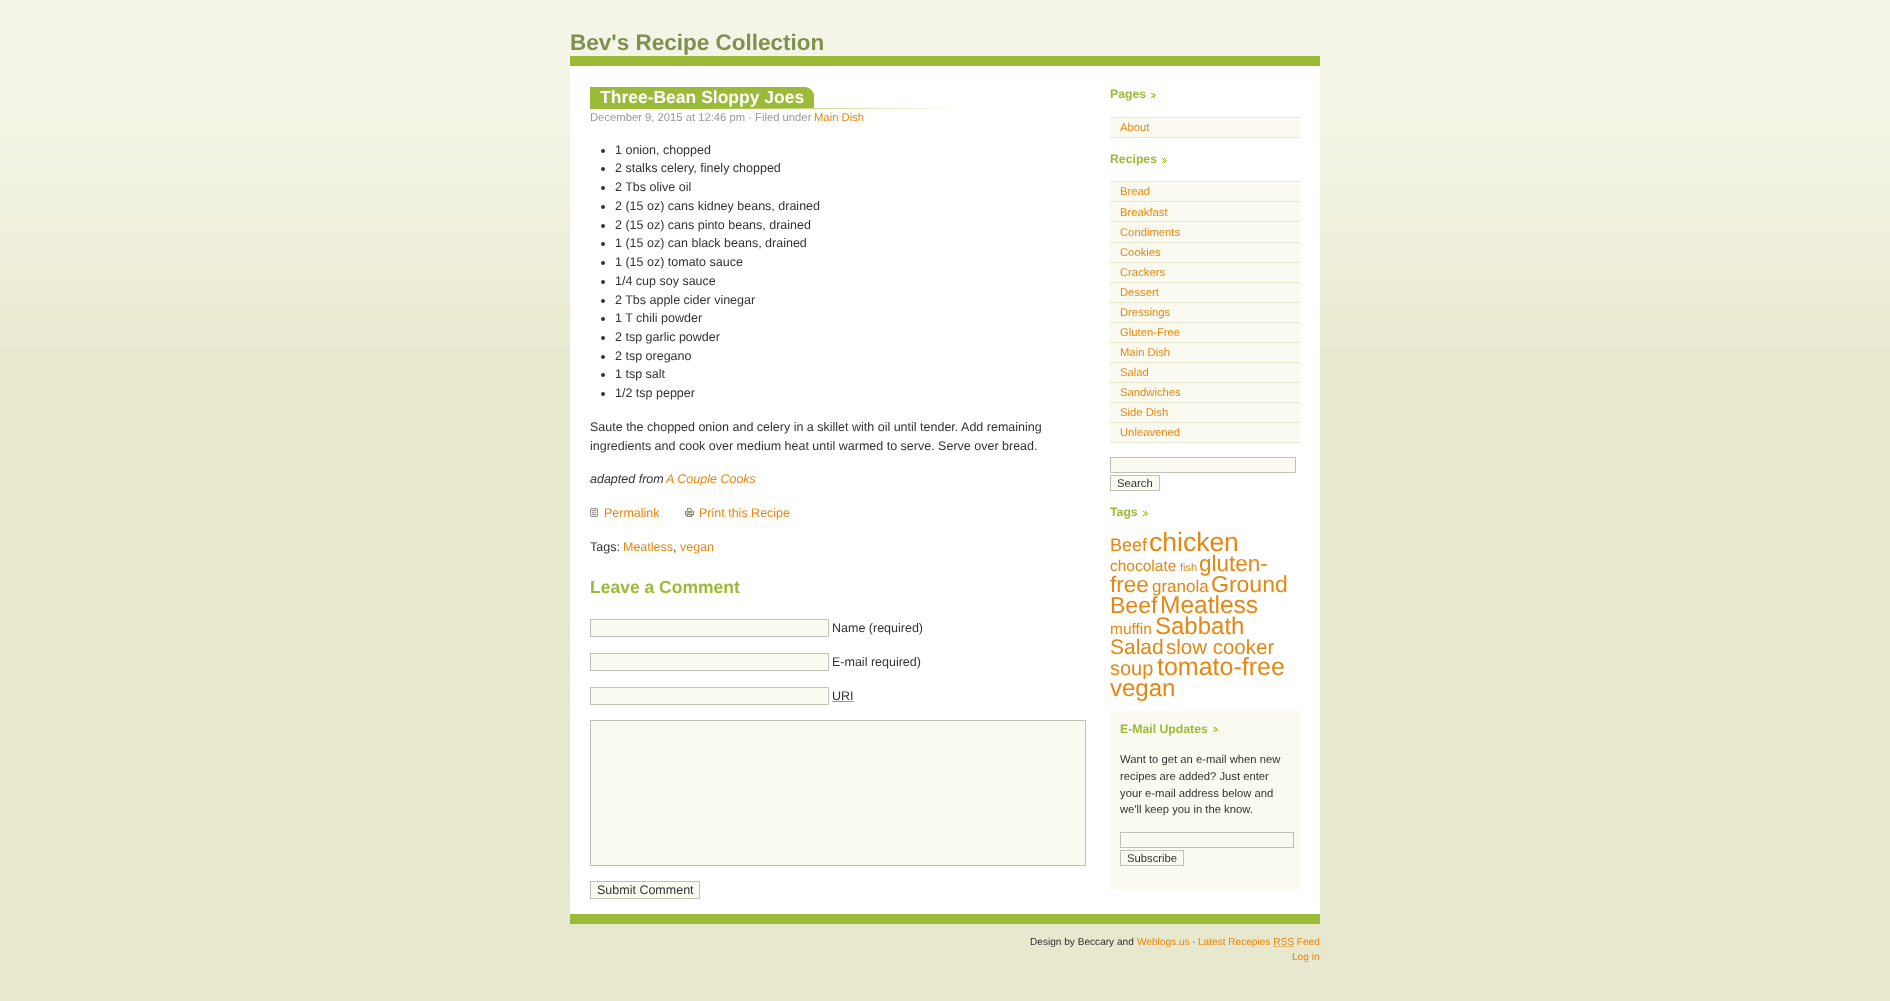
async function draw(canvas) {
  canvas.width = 1890
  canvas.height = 1001
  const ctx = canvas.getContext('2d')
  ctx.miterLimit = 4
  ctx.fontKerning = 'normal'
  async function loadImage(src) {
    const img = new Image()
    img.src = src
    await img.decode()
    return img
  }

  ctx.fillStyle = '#e8e8ce'
  ctx.fillRect(0, 0, 1890, 1001)
  ctx.drawImage(await loadImage('image0.png'), 0, 0, 1890, 347)
  ctx.fillStyle = '#fff'
  ctx.fillRect(570, 66, 750, 848)
  ctx.fillStyle = '#9bbb38'
  ctx.fillRect(570, 56, 750, 10)
  ctx.font = 'bold 22.5px Liberation Sans'
  ctx.fillStyle = '#80904f'
  ctx.fillText('Bev\'s Recipe Collection', 570, 50)
  ctx.fillStyle = '#9bbb38'
  ctx.fillRect(590, 87, 224, 21)
  ctx.drawImage(await loadImage('image1.png'), 805, 87, 9, 8)
  ctx.font = 'bold 17.5px Liberation Sans'
  ctx.fillStyle = '#fff'
  ctx.fillText('Three-Bean Sloppy Joes', 600, 103)
  ctx.drawImage(await loadImage('image2.png'), 590, 108, 367, 1)
  ctx.font = '11.25px Liberation Sans'
  ctx.fillStyle = '#999'
  ctx.fillText('December 9, 2015 at 12:46 pm · Filed under', 590, 121)
  ctx.fillStyle = '#e58712'
  ctx.fillText('Main Dish', 814, 121)
  ctx.fillStyle = '#333'
  ctx.beginPath()
  ctx.arc(603, 151, 2, 0, 2 * Math.PI)
  ctx.fill()
  ctx.font = '12.5px Liberation Sans'
  ctx.fillText('1 onion, chopped', 615, 154)
  ctx.beginPath()
  ctx.arc(603, 169, 2, 0, 2 * Math.PI)
  ctx.fill()
  ctx.fillText('2 stalks celery, finely chopped', 615, 172)
  ctx.beginPath()
  ctx.arc(603, 188, 2, 0, 2 * Math.PI)
  ctx.fill()
  ctx.fillText('2 Tbs olive oil', 615, 191)
  ctx.beginPath()
  ctx.arc(603, 207, 2, 0, 2 * Math.PI)
  ctx.fill()
  ctx.fillText('2 (15 oz) cans kidney beans, drained', 615, 210)
  ctx.beginPath()
  ctx.arc(603, 226, 2, 0, 2 * Math.PI)
  ctx.fill()
  ctx.fillText('2 (15 oz) cans pinto beans, drained', 615, 229)
  ctx.beginPath()
  ctx.arc(603, 244, 2, 0, 2 * Math.PI)
  ctx.fill()
  ctx.fillText('1 (15 oz) can black beans, drained', 615, 247)
  ctx.beginPath()
  ctx.arc(603, 263, 2, 0, 2 * Math.PI)
  ctx.fill()
  ctx.fillText('1 (15 oz) tomato sauce', 615, 266)
  ctx.beginPath()
  ctx.arc(603, 282, 2, 0, 2 * Math.PI)
  ctx.fill()
  ctx.fillText('1/4 cup soy sauce', 615, 285)
  ctx.beginPath()
  ctx.arc(603, 301, 2, 0, 2 * Math.PI)
  ctx.fill()
  ctx.fillText('2 Tbs apple cider vinegar', 615, 304)
  ctx.beginPath()
  ctx.arc(603, 319, 2, 0, 2 * Math.PI)
  ctx.fill()
  ctx.fillText('1 T chili powder', 615, 322)
  ctx.beginPath()
  ctx.arc(603, 338, 2, 0, 2 * Math.PI)
  ctx.fill()
  ctx.fillText('2 tsp garlic powder', 615, 341)
  ctx.beginPath()
  ctx.arc(603, 357, 2, 0, 2 * Math.PI)
  ctx.fill()
  ctx.fillText('2 tsp oregano', 615, 360)
  ctx.beginPath()
  ctx.arc(603, 375, 2, 0, 2 * Math.PI)
  ctx.fill()
  ctx.fillText('1 tsp salt', 615, 378)
  ctx.beginPath()
  ctx.arc(603, 394, 2, 0, 2 * Math.PI)
  ctx.fill()
  ctx.fillText('1/2 tsp pepper', 615, 397)
  ctx.fillText('Saute the chopped onion and celery in a skillet with oil until tender. Add remaining', 590, 431)
  ctx.fillText('ingredients and cook over medium heat until warmed to serve. Serve over bread.', 590, 450)
  ctx.font = 'italic 12.5px Liberation Sans'
  ctx.fillText('adapted from', 590, 483)
  ctx.fillStyle = '#e58712'
  ctx.fillText('A Couple Cooks', 666, 483)
  ctx.drawImage(await loadImage('image3.png'), 590, 508, 8, 9)
  ctx.font = '12.5px Liberation Sans'
  ctx.fillText('Permalink', 604, 517)
  ctx.drawImage(await loadImage('image4.png'), 685, 508, 9, 9)
  ctx.fillText('Print this Recipe', 699, 517)
  ctx.fillStyle = '#333'
  ctx.fillText('Tags:', 590, 551)
  ctx.fillStyle = '#e58712'
  ctx.fillText('Meatless', 623, 551)
  ctx.fillStyle = '#333'
  ctx.fillText(',', 673, 551)
  ctx.fillStyle = '#e58712'
  ctx.fillText('vegan', 680, 551)
  ctx.font = 'bold 17.5px Liberation Sans'
  ctx.fillStyle = '#9bbb38'
  ctx.fillText('Leave a Comment', 590, 593)
  ctx.fillStyle = '#fafaf0'
  ctx.beginPath()
  ctx.rect(590.5, 619.5, 238, 17)
  ctx.fill()
  ctx.strokeStyle = '#c1c0b5'
  ctx.stroke()
  ctx.font = '12.5px Liberation Sans'
  ctx.fillStyle = '#333'
  ctx.fillText('Name (required)', 832, 632)
  ctx.fillStyle = '#fafaf0'
  ctx.beginPath()
  ctx.rect(590.5, 653.5, 238, 17)
  ctx.fill()
  ctx.stroke()
  ctx.fillStyle = '#333'
  ctx.fillText('E-mail required)', 832, 666)
  ctx.fillStyle = '#fafaf0'
  ctx.beginPath()
  ctx.rect(590.5, 687.5, 238, 17)
  ctx.fill()
  ctx.stroke()
  ctx.fillStyle = '#333'
  ctx.fillText('URI', 832, 700)
  ctx.beginPath()
  ctx.moveTo(832.5, 701.5)
  ctx.lineTo(854, 701.5)
  ctx.strokeStyle = '#333'
  ctx.setLineDash([1, 1])
  ctx.stroke()
  ctx.fillStyle = '#fafaf0'
  ctx.beginPath()
  ctx.rect(590.5, 720.5, 495, 145)
  ctx.fill()
  ctx.strokeStyle = '#c1c0b5'
  ctx.setLineDash([])
  ctx.stroke()
  ctx.beginPath()
  ctx.rect(590.5, 881.5, 109, 17)
  ctx.fill()
  ctx.stroke()
  ctx.fillStyle = '#333'
  ctx.fillText('Submit Comment', 597, 894)
  ctx.font = 'bold 12.25px Liberation Sans'
  ctx.fillStyle = '#9bbb38'
  ctx.fillText('Pages', 1110, 98)
  ctx.drawImage(await loadImage('image5.png'), 1151, 93, 5, 5)
  ctx.fillStyle = '#fafaf0'
  ctx.fillRect(1110, 118, 190, 19)
  ctx.fillStyle = '#e8e7d0'
  ctx.fillRect(1110, 117, 190, 1)
  ctx.fillRect(1110, 137, 190, 1)
  ctx.font = '11.25px Liberation Sans'
  ctx.fillStyle = '#e58712'
  ctx.fillText('About', 1120, 131)
  ctx.font = 'bold 12.25px Liberation Sans'
  ctx.fillStyle = '#9bbb38'
  ctx.fillText('Recipes', 1110, 163)
  ctx.drawImage(await loadImage('image5.png'), 1162, 158, 5, 5)
  ctx.fillStyle = '#fafaf0'
  ctx.fillRect(1110, 182, 190, 260)
  ctx.fillStyle = '#e8e7d0'
  ctx.fillRect(1110, 181, 190, 1)
  ctx.fillRect(1110, 201, 190, 1)
  ctx.font = '11.25px Liberation Sans'
  ctx.fillStyle = '#e58712'
  ctx.fillText('Bread', 1120, 195)
  ctx.fillStyle = '#e8e7d0'
  ctx.fillRect(1110, 221, 190, 1)
  ctx.fillStyle = '#e58712'
  ctx.fillText('Breakfast', 1120, 216)
  ctx.fillStyle = '#e8e7d0'
  ctx.fillRect(1110, 242, 190, 1)
  ctx.fillStyle = '#e58712'
  ctx.fillText('Condiments', 1120, 236)
  ctx.fillStyle = '#e8e7d0'
  ctx.fillRect(1110, 262, 190, 1)
  ctx.fillStyle = '#e58712'
  ctx.fillText('Cookies', 1120, 256)
  ctx.fillStyle = '#e8e7d0'
  ctx.fillRect(1110, 282, 190, 1)
  ctx.fillStyle = '#e58712'
  ctx.fillText('Crackers', 1120, 276)
  ctx.fillStyle = '#e8e7d0'
  ctx.fillRect(1110, 302, 190, 1)
  ctx.fillStyle = '#e58712'
  ctx.fillText('Dessert', 1120, 296)
  ctx.fillStyle = '#e8e7d0'
  ctx.fillRect(1110, 322, 190, 1)
  ctx.fillStyle = '#e58712'
  ctx.fillText('Dressings', 1120, 316)
  ctx.fillStyle = '#e8e7d0'
  ctx.fillRect(1110, 342, 190, 1)
  ctx.fillStyle = '#e58712'
  ctx.fillText('Gluten-Free', 1120, 336)
  ctx.fillStyle = '#e8e7d0'
  ctx.fillRect(1110, 362, 190, 1)
  ctx.fillStyle = '#e58712'
  ctx.fillText('Main Dish', 1120, 356)
  ctx.fillStyle = '#e8e7d0'
  ctx.fillRect(1110, 382, 190, 1)
  ctx.fillStyle = '#e58712'
  ctx.fillText('Salad', 1120, 376)
  ctx.fillStyle = '#e8e7d0'
  ctx.fillRect(1110, 402, 190, 1)
  ctx.fillStyle = '#e58712'
  ctx.fillText('Sandwiches', 1120, 396)
  ctx.fillStyle = '#e8e7d0'
  ctx.fillRect(1110, 422, 190, 1)
  ctx.fillStyle = '#e58712'
  ctx.fillText('Side Dish', 1120, 416)
  ctx.fillStyle = '#e8e7d0'
  ctx.fillRect(1110, 442, 190, 1)
  ctx.fillStyle = '#e58712'
  ctx.fillText('Unleavened', 1120, 436)
  ctx.fillStyle = '#fafaf0'
  ctx.beginPath()
  ctx.rect(1110.5, 457.5, 185, 15)
  ctx.fill()
  ctx.stroke()
  ctx.beginPath()
  ctx.rect(1110.5, 475.5, 49, 15)
  ctx.fill()
  ctx.stroke()
  ctx.fillStyle = '#333'
  ctx.fillText('Search', 1117, 487)
  ctx.font = 'bold 12.25px Liberation Sans'
  ctx.fillStyle = '#9bbb38'
  ctx.fillText('Tags', 1110, 516)
  ctx.drawImage(await loadImage('image5.png'), 1143, 511, 5, 5)
  ctx.font = '18px Liberation Sans'
  ctx.fillStyle = '#e58712'
  ctx.fillText('Beef', 1110, 551)
  ctx.font = '26.5px Liberation Sans'
  ctx.fillText('chicken', 1149, 551)
  ctx.font = '15.5px Liberation Sans'
  ctx.fillText('chocolate', 1110, 571)
  ctx.font = '11px Liberation Sans'
  ctx.fillText('fish', 1180, 571)
  ctx.font = '22.5px Liberation Sans'
  ctx.fillText('gluten-', 1199, 571)
  ctx.fillText('free', 1110, 592)
  ctx.font = '17px Liberation Sans'
  ctx.fillText('granola', 1152, 592)
  ctx.font = '23px Liberation Sans'
  ctx.fillText('Ground', 1211, 592)
  ctx.fillText('Beef', 1110, 613)
  ctx.font = '24.5px Liberation Sans'
  ctx.fillText('Meatless', 1160, 613)
  ctx.font = '15.5px Liberation Sans'
  ctx.fillText('muffin', 1110, 634)
  ctx.font = '24px Liberation Sans'
  ctx.fillText('Sabbath', 1155, 634)
  ctx.font = '21px Liberation Sans'
  ctx.fillText('Salad', 1110, 654)
  ctx.font = '20.5px Liberation Sans'
  ctx.fillText('slow cooker', 1166, 654)
  ctx.font = '20px Liberation Sans'
  ctx.fillText('soup', 1110, 675)
  ctx.font = '25px Liberation Sans'
  ctx.fillText('tomato-free', 1157, 675)
  ctx.font = '24px Liberation Sans'
  ctx.fillText('vegan', 1110, 696)
  ctx.fillStyle = '#fafaf0'
  ctx.fillRect(1110, 711, 190, 178)
  ctx.font = 'bold 12.25px Liberation Sans'
  ctx.fillStyle = '#9bbb38'
  ctx.fillText('E-Mail Updates', 1120, 733)
  ctx.drawImage(await loadImage('image6.png'), 1213, 725, 5, 7)
  ctx.font = '11.25px Liberation Sans'
  ctx.fillStyle = '#333'
  ctx.fillText('Want to get an e-mail when new', 1120, 763)
  ctx.fillText('recipes are added? Just enter', 1120, 780)
  ctx.fillText('your e-mail address below and', 1120, 797)
  ctx.fillText('we\'ll keep you in the know.', 1120, 813)
  ctx.strokeRect(1120.5, 832.5, 173, 15)
  ctx.strokeRect(1120.5, 850.5, 63, 15)
  ctx.fillText('Subscribe', 1127, 862)
  ctx.fillStyle = '#9bbb38'
  ctx.fillRect(570, 914, 750, 10)
  ctx.font = '10.1px Liberation Sans'
  ctx.fillStyle = '#333'
  ctx.fillText('Design by Beccary and', 1030, 945)
  ctx.fillStyle = '#e58712'
  ctx.fillText('Weblogs.us', 1137, 945)
  ctx.fillStyle = '#333'
  ctx.fillText('·', 1192, 945)
  ctx.fillStyle = '#e58712'
  ctx.fillText('Latest Recepies RSS Feed', 1198, 945)
  ctx.beginPath()
  ctx.moveTo(1273.5, 946.5)
  ctx.lineTo(1294, 946.5)
  ctx.strokeStyle = '#e58712'
  ctx.setLineDash([1, 1])
  ctx.stroke()
  ctx.fillText('Log in', 1292, 960)
}

draw(document.querySelector('canvas'))
